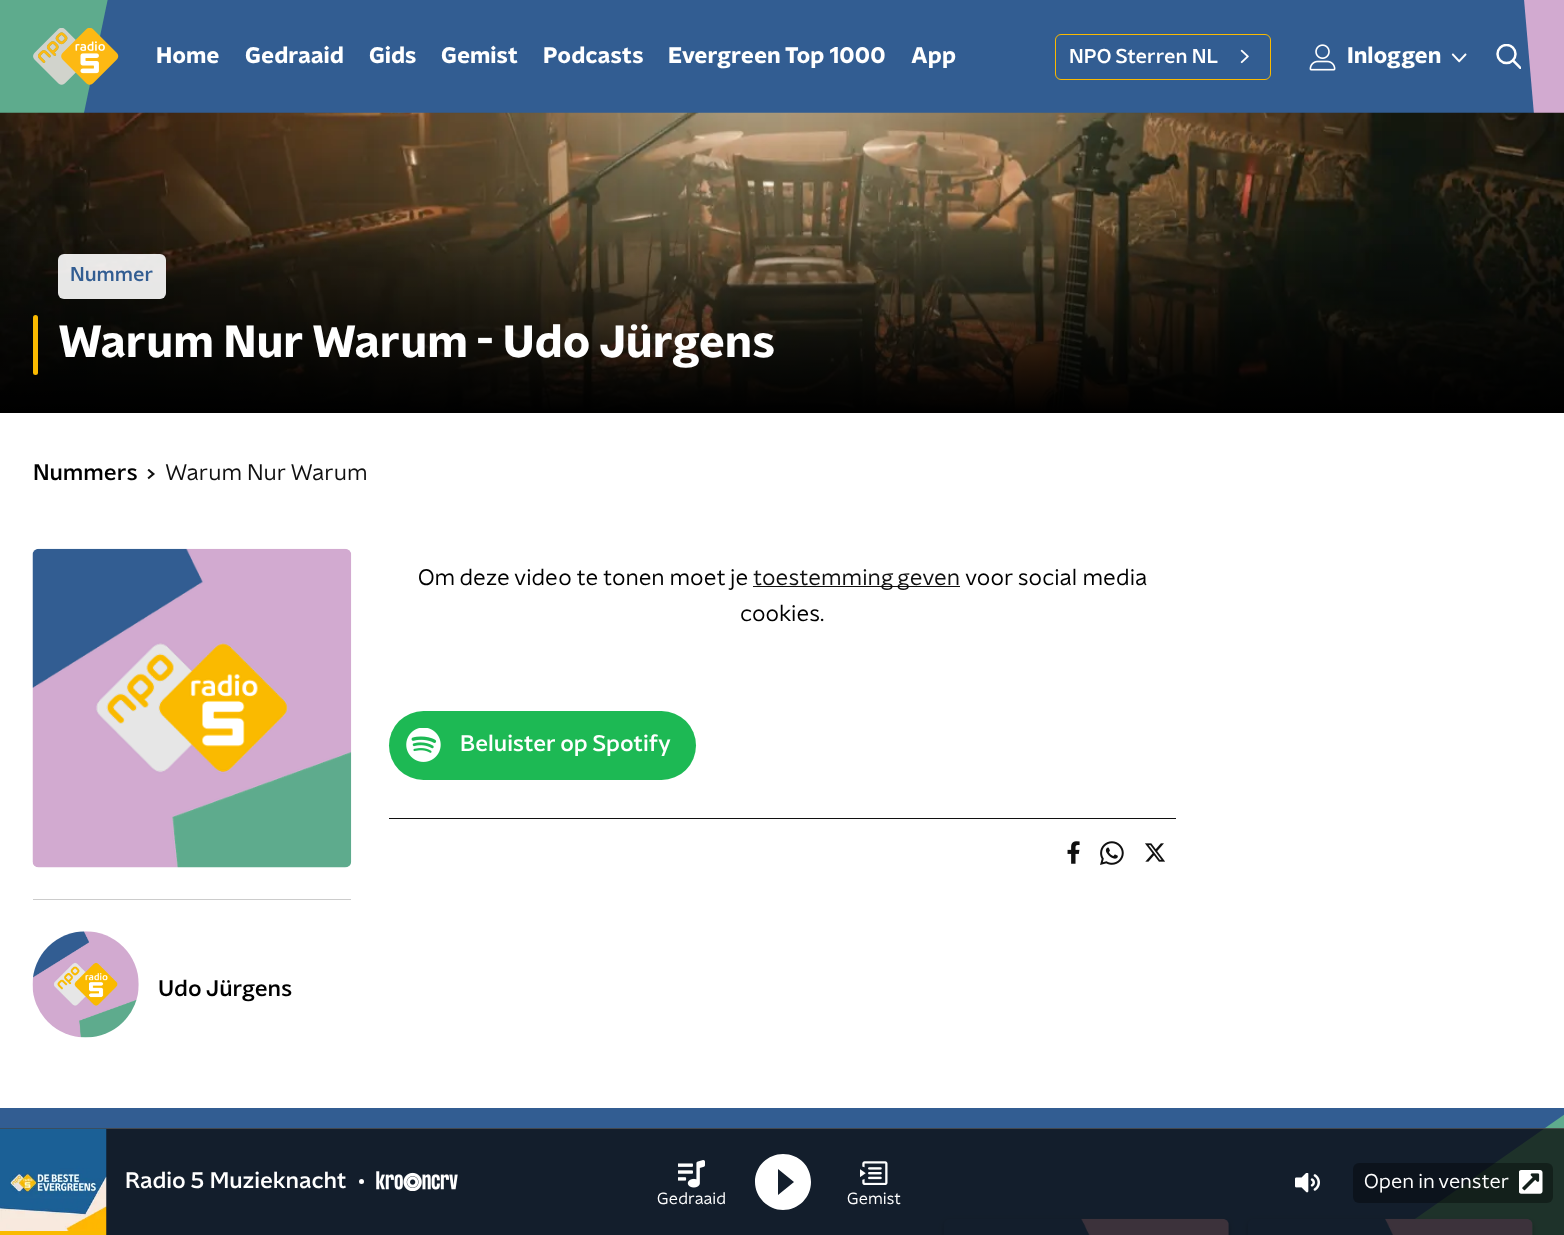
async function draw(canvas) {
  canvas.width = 1564
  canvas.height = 1235
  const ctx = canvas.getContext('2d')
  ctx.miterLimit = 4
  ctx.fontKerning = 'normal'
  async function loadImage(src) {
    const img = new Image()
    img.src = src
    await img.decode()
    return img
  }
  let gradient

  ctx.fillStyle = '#fff'
  ctx.fillRect(0, 0, 1564, 1235)
  ctx.fillStyle = '#325d92'
  ctx.fillRect(84, 0, 1450, 113)
  ctx.save()
  ctx.beginPath()
  ctx.rect(0, 0, 125, 113)
  ctx.clip()
  ctx.fillStyle = '#5eab8d'
  ctx.beginPath()
  ctx.moveTo(125, -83)
  ctx.lineTo(-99, 987)
  ctx.lineTo(-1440, 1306)
  ctx.lineTo(-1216, 235)
  ctx.closePath()
  ctx.fill()
  ctx.restore()
  ctx.fillStyle = '#d2aad0'
  ctx.beginPath()
  ctx.moveTo(1537, 149)
  ctx.lineTo(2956, 383)
  ctx.lineTo(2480, -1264)
  ctx.lineTo(1391, -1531)
  ctx.closePath()
  ctx.fill()
  ctx.drawImage(await loadImage('image0.png'), 33, 28, 86, 57)
  ctx.font = 'bold 22.5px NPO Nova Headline'
  ctx.fillStyle = '#fff'
  ctx.fillText('Home', 156, 63)
  ctx.fillText('Gedraaid', 245, 63)
  ctx.fillText('Gids', 369, 63)
  ctx.fillText('Gemist', 441, 63)
  ctx.fillText('Podcasts', 543, 63)
  ctx.fillText('Evergreen Top 1000', 668, 63)
  ctx.fillText('App', 911, 63)
  ctx.beginPath()
  ctx.roundRect(1055.5, 34.5, 215, 45, 5.5)
  ctx.strokeStyle = '#faba00'
  ctx.stroke()
  ctx.font = '500 20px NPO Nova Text'
  ctx.fillText('NPO Sterren NL', 1069, 63)
  ctx.drawImage(await loadImage('image1.png'), 1240, 49, 9, 15)
  ctx.drawImage(await loadImage('image2.png'), 1309, 44, 27, 27)
  ctx.font = 'bold 22.5px NPO Nova Headline'
  ctx.fillText('Inloggen', 1347, 63)
  ctx.drawImage(await loadImage('image3.png'), 1451, 53, 16, 10)
  ctx.save()
  ctx.beginPath()
  ctx.rect(1496, 44, 25, 25)
  ctx.clip()
  ctx.beginPath()
  ctx.arc(1506.5, 54, 9, 0, 2 * Math.PI)
  ctx.strokeStyle = '#fff'
  ctx.lineWidth = 2.5
  ctx.stroke()
  ctx.beginPath()
  ctx.moveTo(1513, 60.5)
  ctx.lineTo(1520.5, 68)
  ctx.lineCap = 'square'
  ctx.stroke()
  ctx.restore()
  ctx.drawImage(await loadImage('image4.png'), 0, 112, 1564, 300)
  gradient = ctx.createLinearGradient(783, 225, 783, 413)
  gradient.addColorStop(0, '#00000000')
  gradient.addColorStop(1, '#000')
  ctx.fillStyle = gradient
  ctx.fillRect(0, 229, 1564, 184)
  ctx.fillStyle = '#ffffffe6'
  ctx.beginPath()
  ctx.roundRect(58, 254, 108, 45, 6)
  ctx.fill()
  ctx.font = '500 20px NPO Nova Text'
  ctx.fillStyle = '#325d92'
  ctx.fillText('Nummer', 70, 281)
  ctx.fillStyle = '#faba00'
  ctx.beginPath()
  ctx.roundRect(33, 315, 5, 60, 2.5)
  ctx.fill()
  ctx.font = 'bold 45px NPO Nova Headline'
  ctx.fillStyle = '#fff'
  ctx.fillText('Warum Nur Warum - Udo Jürgens', 58, 357)
  ctx.font = '500 22.5px NPO Nova Text'
  ctx.fillStyle = '#000'
  ctx.fillText('Nummers', 33, 480)
  ctx.drawImage(await loadImage('image5.png'), 147, 469, 8, 11)
  ctx.font = '22.5px NPO Nova Text'
  ctx.fillStyle = '#101010'
  ctx.fillText('Warum Nur Warum', 165, 480)
  ctx.fillStyle = '#000'
  ctx.fillText('Om deze video te tonen moet je', 418, 585)
  ctx.fillStyle = '#101010'
  ctx.fillRect(753, 586, 207, 1)
  ctx.wordSpacing = '-1px'
  ctx.fillText('toestemming geven', 753, 585)
  ctx.wordSpacing = '0px'
  ctx.fillStyle = '#000'
  ctx.fillText('voor social media', 965, 585)
  ctx.fillText('cookies.', 740, 621)
  ctx.fillStyle = '#1db954'
  ctx.beginPath()
  ctx.roundRect(389, 711, 307, 69, 34.5)
  ctx.fill()
  ctx.drawImage(await loadImage('image6.png'), 406, 728, 35, 34)
  ctx.font = '500 22.5px NPO Nova Text'
  ctx.fillStyle = '#fff'
  ctx.fillText('Beluister op Spotify', 460, 751)
  ctx.fillStyle = '#101010'
  ctx.fillRect(389, 818, 787, 1)
  ctx.drawImage(await loadImage('image7.png'), 1067, 841, 13, 23)
  ctx.drawImage(await loadImage('image8.png'), 1100, 841, 24, 24)
  ctx.drawImage(await loadImage('image9.png'), 1145, 843, 20, 19)
  ctx.drawImage(await loadImage('image10.png'), 32, 548, 320, 320)
  ctx.fillStyle = '#ccc'
  ctx.fillRect(33, 899, 318, 1)
  ctx.drawImage(await loadImage('image11.png'), 32, 931, 107, 107)
  ctx.fillStyle = '#000'
  ctx.fillText('Udo Jürgens', 158, 996)
  ctx.fillStyle = '#325d92'
  ctx.fillRect(0, 1108, 1564, 127)
  ctx.fillStyle = '#5eab8d'
  ctx.beginPath()
  ctx.moveTo(1392, 1235)
  ctx.lineTo(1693, 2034)
  ctx.lineTo(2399, 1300)
  ctx.lineTo(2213, 661)
  ctx.closePath()
  ctx.fill()
  ctx.save()
  ctx.beginPath()
  ctx.moveTo(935, 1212)
  ctx.lineTo(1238, 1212)
  ctx.lineTo(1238, 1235)
  ctx.lineTo(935, 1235)
  ctx.closePath()
  ctx.moveTo(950, 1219)
  ctx.lineTo(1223, 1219)
  ctx.bezierCurveTo(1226.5, 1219, 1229, 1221.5, 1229, 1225)
  ctx.lineTo(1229, 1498)
  ctx.bezierCurveTo(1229, 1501.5, 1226.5, 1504, 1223, 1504)
  ctx.lineTo(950, 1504)
  ctx.bezierCurveTo(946.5, 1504, 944, 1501.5, 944, 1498)
  ctx.lineTo(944, 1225)
  ctx.bezierCurveTo(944, 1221.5, 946.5, 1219, 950, 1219)
  ctx.closePath()
  ctx.clip('evenodd')
  ctx.fillStyle = '#00000040'
  ctx.filter = 'blur(2.5px)'
  ctx.beginPath()
  ctx.roundRect(944, 1221, 285, 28, 6)
  ctx.fill()
  ctx.filter = 'none'
  ctx.restore()
  ctx.drawImage(await loadImage('image12.png'), 1081, 1218, 148, 17)
  ctx.save()
  ctx.beginPath()
  ctx.moveTo(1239, 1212)
  ctx.lineTo(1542, 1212)
  ctx.lineTo(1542, 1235)
  ctx.lineTo(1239, 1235)
  ctx.closePath()
  ctx.moveTo(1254, 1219)
  ctx.lineTo(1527, 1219)
  ctx.bezierCurveTo(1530.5, 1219, 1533, 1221.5, 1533, 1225)
  ctx.lineTo(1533, 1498)
  ctx.bezierCurveTo(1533, 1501.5, 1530.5, 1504, 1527, 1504)
  ctx.lineTo(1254, 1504)
  ctx.bezierCurveTo(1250.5, 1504, 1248, 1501.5, 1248, 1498)
  ctx.lineTo(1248, 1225)
  ctx.bezierCurveTo(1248, 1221.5, 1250.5, 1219, 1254, 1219)
  ctx.closePath()
  ctx.clip('evenodd')
  ctx.fillStyle = '#00000040'
  ctx.filter = 'blur(2.5px)'
  ctx.beginPath()
  ctx.roundRect(1248, 1221, 285, 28, 6)
  ctx.fill()
  ctx.filter = 'none'
  ctx.restore()
  ctx.drawImage(await loadImage('image13.png'), 1385, 1218, 148, 17)
  ctx.fillStyle = '#090909bf'
  ctx.fillRect(0, 1128, 1564, 107)
  ctx.fillStyle = '#5f5f5fa6'
  ctx.fillRect(0, 1128, 1564, 1)
  ctx.drawImage(await loadImage('image14.png'), 0, 1128, 107, 107)
  ctx.fillStyle = '#faba00'
  ctx.fillRect(0, 1231, 106, 4)
  ctx.fillStyle = '#fff'
  ctx.fillText('Radio 5 Muzieknacht', 125, 1188)
  ctx.beginPath()
  ctx.arc(361.5, 1181.5, 2.5, 0, 2 * Math.PI)
  ctx.fill()
  ctx.drawImage(await loadImage('image15.png'), 376, 1171, 82, 20)
  ctx.drawImage(await loadImage('image16.png'), 1295, 1173, 25, 20)
  ctx.fillStyle = '#00000059'
  ctx.beginPath()
  ctx.roundRect(1353, 1163, 200, 40, 6)
  ctx.fill()
  ctx.font = '20px NPO Nova Text'
  ctx.fillStyle = '#fff'
  ctx.fillText('Open in venster', 1364, 1188)
  ctx.drawImage(await loadImage('image17.png'), 1519, 1170, 24, 24)
  ctx.drawImage(await loadImage('image18.png'), 678, 1160, 27, 28)
  ctx.font = '16.25px NPO Nova Text'
  ctx.fillText('Gedraaid', 657, 1204)
  ctx.beginPath()
  ctx.moveTo(783, 1154)
  ctx.bezierCurveTo(768, 1154, 755, 1166, 755, 1182)
  ctx.bezierCurveTo(755, 1197, 768, 1210, 783, 1210)
  ctx.bezierCurveTo(799, 1210, 811, 1197, 811, 1182)
  ctx.bezierCurveTo(811, 1166, 799, 1154, 783, 1154)
  ctx.closePath()
  ctx.moveTo(778, 1195)
  ctx.lineTo(778, 1169)
  ctx.lineTo(794, 1182)
  ctx.closePath()
  ctx.fill()
  ctx.drawImage(await loadImage('image19.png'), 860, 1161, 28, 24)
  ctx.fillText('Gemist', 847, 1204)
}

draw(document.querySelector('canvas'))
